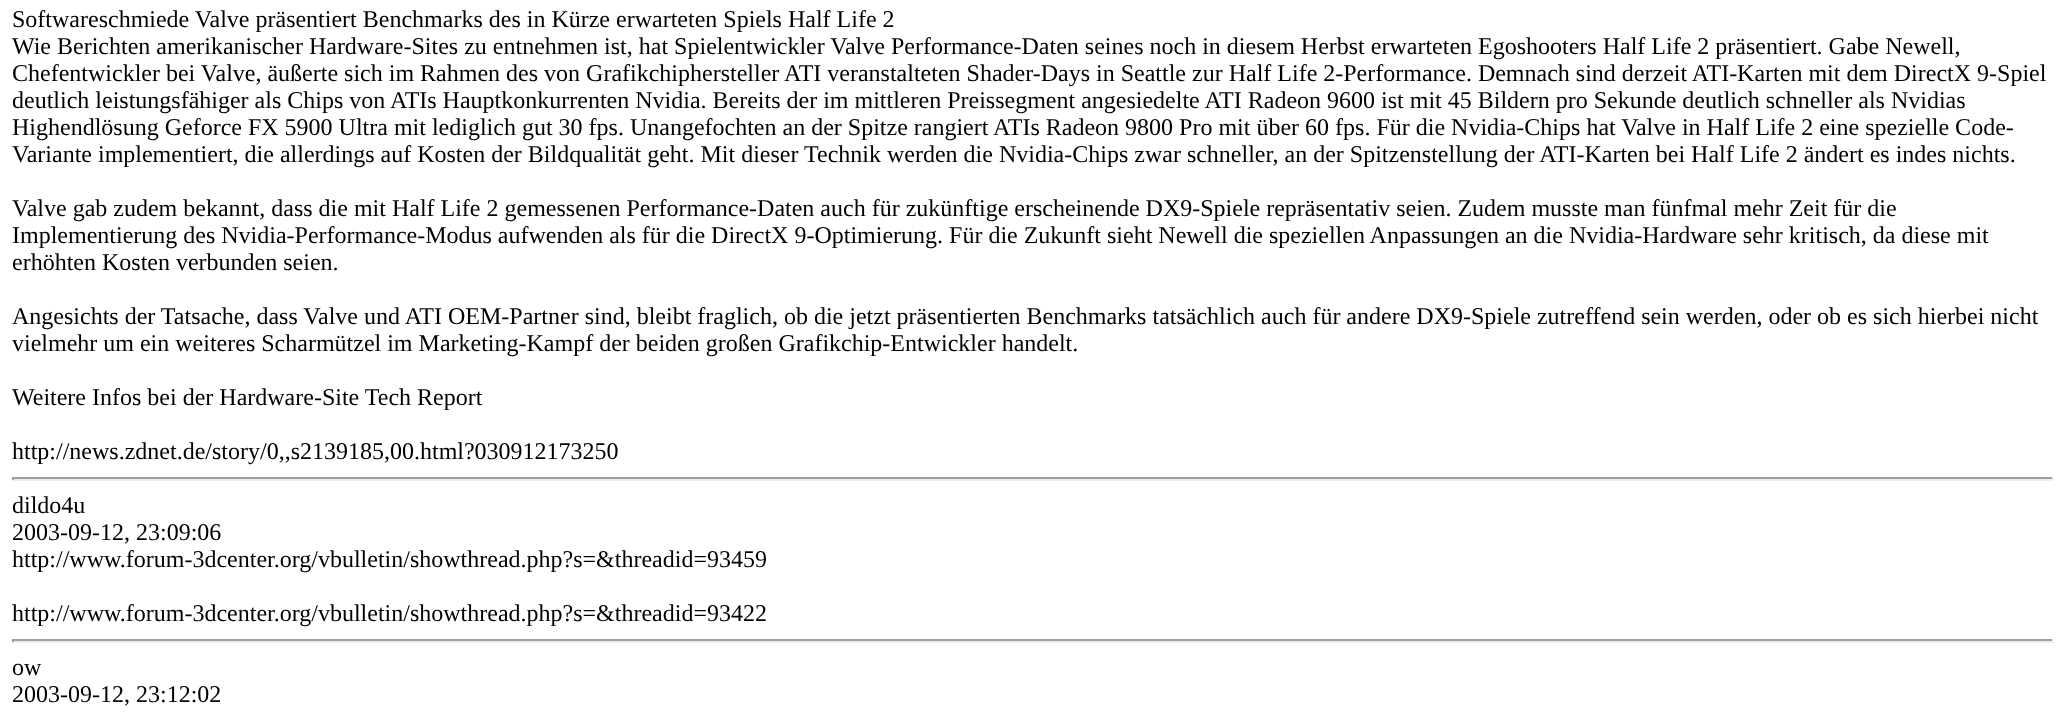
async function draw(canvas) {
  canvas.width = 2065
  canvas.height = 716
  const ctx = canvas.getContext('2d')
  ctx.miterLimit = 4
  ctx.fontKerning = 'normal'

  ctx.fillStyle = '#fff'
  ctx.fillRect(0, 0, 2065, 716)
  ctx.font = '24px Liberation Serif'
  ctx.fillStyle = '#000'
  ctx.fillText('Softwareschmiede Valve präsentiert Benchmarks des in Kürze erwarteten Spiels Half Life 2', 12, 27)
  ctx.fillText('Wie Berichten amerikanischer Hardware-Sites zu entnehmen ist, hat Spielentwickler Valve Performance-Daten seines noch in diesem Herbst erwarteten Egoshooters Half Life 2 präsentiert. Gabe Newell,', 12, 54)
  ctx.fillText('Chefentwickler bei Valve, äußerte sich im Rahmen des von Grafikchiphersteller ATI veranstalteten Shader-Days in Seattle zur Half Life 2-Performance. Demnach sind derzeit ATI-Karten mit dem DirectX 9-Spiel', 12, 81)
  ctx.fillText('deutlich leistungsfähiger als Chips von ATIs Hauptkonkurrenten Nvidia. Bereits der im mittleren Preissegment angesiedelte ATI Radeon 9600 ist mit 45 Bildern pro Sekunde deutlich schneller als Nvidias', 12, 108)
  ctx.fillText('Highendlösung Geforce FX 5900 Ultra mit lediglich gut 30 fps. Unangefochten an der Spitze rangiert ATIs Radeon 9800 Pro mit über 60 fps. Für die Nvidia-Chips hat Valve in Half Life 2 eine spezielle Code-', 12, 135)
  ctx.fillText('Variante implementiert, die allerdings auf Kosten der Bildqualität geht. Mit dieser Technik werden die Nvidia-Chips zwar schneller, an der Spitzenstellung der ATI-Karten bei Half Life 2 ändert es indes nichts.', 12, 162)
  ctx.fillText('Valve gab zudem bekannt, dass die mit Half Life 2 gemessenen Performance-Daten auch für zukünftige erscheinende DX9-Spiele repräsentativ seien. Zudem musste man fünfmal mehr Zeit für die', 12, 216)
  ctx.fillText('Implementierung des Nvidia-Performance-Modus aufwenden als für die DirectX 9-Optimierung. Für die Zukunft sieht Newell die speziellen Anpassungen an die Nvidia-Hardware sehr kritisch, da diese mit', 12, 243)
  ctx.fillText('erhöhten Kosten verbunden seien.', 12, 270)
  ctx.fillText('Angesichts der Tatsache, dass Valve und ATI OEM-Partner sind, bleibt fraglich, ob die jetzt präsentierten Benchmarks tatsächlich auch für andere DX9-Spiele zutreffend sein werden, oder ob es sich hierbei nicht', 12, 324)
  ctx.fillText('vielmehr um ein weiteres Scharmützel im Marketing-Kampf der beiden großen Grafikchip-Entwickler handelt.', 12, 351)
  ctx.fillText('Weitere Infos bei der Hardware-Site Tech Report', 12, 405)
  ctx.fillText('http://news.zdnet.de/story/0,,s2139185,00.html?030912173250', 12, 459)
  ctx.fillStyle = '#9f9f9f'
  ctx.fillRect(12, 477, 2042, 2)
  ctx.fillStyle = '#eee'
  ctx.fillRect(2052, 477, 2, 3)
  ctx.fillRect(12, 479, 2042, 2)
  ctx.fillStyle = '#9f9f9f'
  ctx.fillRect(12, 477, 2, 3)
  ctx.fillStyle = '#000'
  ctx.fillText('dildo4u', 12, 513)
  ctx.fillText('2003-09-12, 23:09:06', 12, 540)
  ctx.fillText('http://www.forum-3dcenter.org/vbulletin/showthread.php?s=&threadid=93459', 12, 567)
  ctx.fillText('http://www.forum-3dcenter.org/vbulletin/showthread.php?s=&threadid=93422', 12, 621)
  ctx.fillStyle = '#9f9f9f'
  ctx.fillRect(12, 639, 2042, 2)
  ctx.fillStyle = '#eee'
  ctx.fillRect(2052, 639, 2, 3)
  ctx.fillRect(12, 641, 2042, 2)
  ctx.fillStyle = '#9f9f9f'
  ctx.fillRect(12, 639, 2, 3)
  ctx.fillStyle = '#000'
  ctx.fillText('ow', 12, 675)
  ctx.fillText('2003-09-12, 23:12:02', 12, 702)
}

draw(document.querySelector('canvas'))
